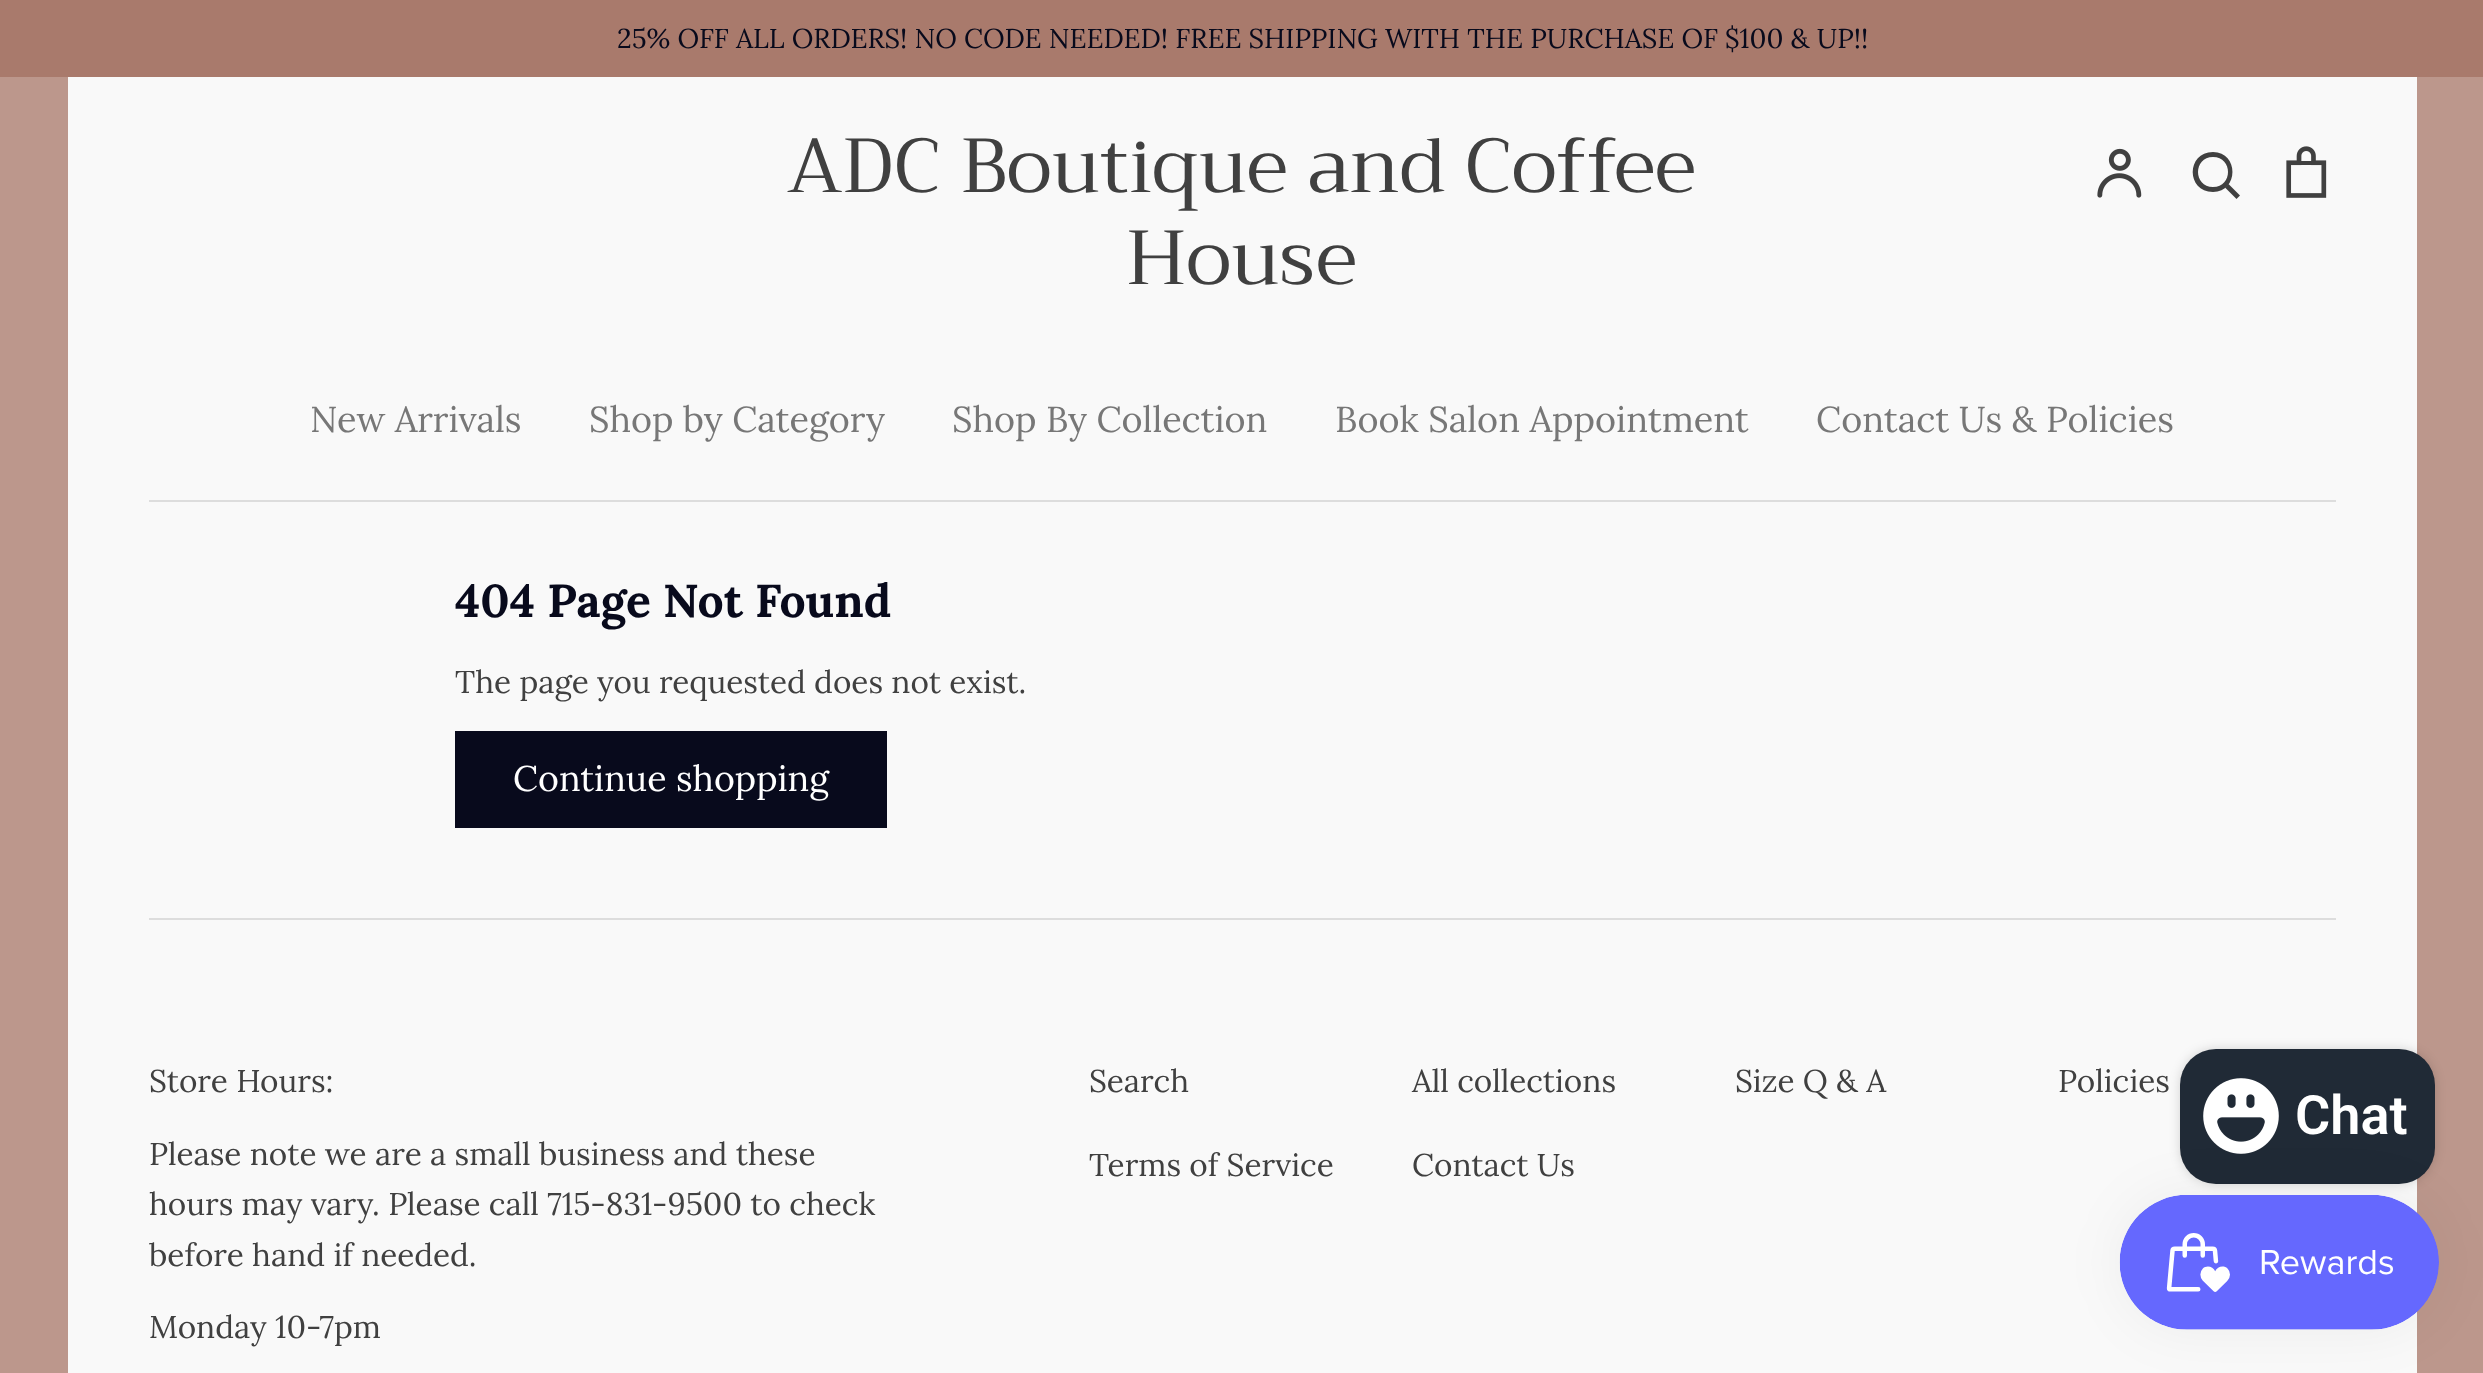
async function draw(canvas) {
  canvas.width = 2483
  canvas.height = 1373
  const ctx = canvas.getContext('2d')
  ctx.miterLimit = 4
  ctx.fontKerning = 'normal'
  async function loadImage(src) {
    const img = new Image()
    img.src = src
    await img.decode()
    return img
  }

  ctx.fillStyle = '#bc978c'
  ctx.fillRect(0, 0, 2483, 1373)
  ctx.fillStyle = '#a97a6c'
  ctx.fillRect(0, 0, 2483, 77)
  ctx.font = '27.3px Lora'
  ctx.fillStyle = '#080a1c'
  ctx.fillText('25% OFF ALL ORDERS! NO CODE NEEDED! FREE SHIPPING WITH THE PURCHASE OF $100 & UP!!', 617, 48)
  ctx.fillStyle = '#f9f9f9'
  ctx.fillRect(68, 77, 2349, 1296)
  ctx.font = '76.5px Trirong'
  ctx.fillStyle = '#404040'
  ctx.fillText('ADC Boutique and Coffee', 787, 192)
  ctx.fillText('House', 1126, 284)
  ctx.drawImage(await loadImage('image0.png'), 2097, 148, 45, 50)
  ctx.beginPath()
  ctx.moveTo(2240, 195.5)
  ctx.lineTo(2236.5, 199)
  ctx.lineTo(2225, 187.5)
  ctx.lineTo(2228.5, 184)
  ctx.closePath()
  ctx.fill()
  ctx.beginPath()
  ctx.moveTo(2213, 192)
  ctx.bezierCurveTo(2186, 192, 2186, 152, 2213, 152)
  ctx.bezierCurveTo(2239, 152, 2239, 192, 2213, 192)
  ctx.closePath()
  ctx.moveTo(2213, 187)
  ctx.bezierCurveTo(2233, 187, 2233, 157, 2213, 157)
  ctx.bezierCurveTo(2193, 157, 2193, 187, 2213, 187)
  ctx.closePath()
  ctx.fill()
  ctx.font = '36px Lora'
  ctx.fillStyle = '#777'
  ctx.fillText('Contact Us & Policies', 1816, 432)
  ctx.fillStyle = '#f9f9f9'
  ctx.beginPath()
  ctx.moveTo(2156, 225)
  ctx.lineTo(2156, 416)
  ctx.lineTo(2153, 414)
  ctx.lineTo(2153, 225)
  ctx.closePath()
  ctx.fill()
  ctx.drawImage(await loadImage('image1.png'), 2286, 146, 41, 52)
  ctx.fillStyle = '#ddd'
  ctx.fillRect(149, 500, 2187, 2)
  ctx.fillStyle = '#777'
  ctx.fillText('New Arrivals', 310, 432)
  ctx.fillText('Shop by Category', 589, 432)
  ctx.fillText('Shop By Collection', 952, 432)
  ctx.fillText('Book Salon Appointment', 1335, 432)
  ctx.font = 'bold 46.25px Lora'
  ctx.fillStyle = '#080a1c'
  ctx.fillText('404 Page Not Found', 455, 617)
  ctx.font = '31.5px Lora'
  ctx.fillStyle = '#404040'
  ctx.fillText('The page you requested does not exist.', 455, 693)
  ctx.fillStyle = '#080a1c'
  ctx.fillRect(455, 731, 432, 97)
  ctx.font = '35.75px Lora'
  ctx.fillStyle = '#fff'
  ctx.fillText('Continue shopping', 513, 791)
  ctx.fillStyle = '#ddd'
  ctx.fillRect(149, 918, 2187, 2)
  ctx.font = '31.5px Lora'
  ctx.fillStyle = '#404040'
  ctx.fillText('Store Hours:', 149, 1092)
  ctx.fillText('Please note we are a small business and these', 149, 1165)
  ctx.fillText('hours may vary. Please call 715-831-9500 to check', 149, 1215)
  ctx.fillText('before hand if needed.', 149, 1266)
  ctx.fillText('Monday 10-7pm', 149, 1338)
  ctx.fillText('Search', 1089, 1092)
  ctx.fillText('All collections', 1412, 1092)
  ctx.fillText('Size Q & A', 1735, 1092)
  ctx.fillText('Policies', 2058, 1092)
  ctx.fillText('Terms of Service', 1089, 1176)
  ctx.fillText('Contact Us', 1412, 1176)
  ctx.fillStyle = '#00000026'
  ctx.filter = 'blur(5.5px)'
  ctx.beginPath()
  ctx.roundRect(2180, 1049, 255, 135, 36)
  ctx.fill()
  ctx.filter = 'none'
  ctx.fillStyle = '#202a36'
  ctx.beginPath()
  ctx.roundRect(2180, 1049, 255, 135, 36)
  ctx.fill()
  ctx.drawImage(await loadImage('image2.png'), 2203, 1078, 76, 76)
  ctx.font = '600 54px Roboto'
  ctx.fillStyle = '#fff'
  ctx.fillText('Chat', 2295, 1134)
  ctx.fillStyle = '#0000000d'
  ctx.filter = 'blur(28px)'
  ctx.beginPath()
  ctx.roundRect(2120, 1195, 319, 135, 67.5)
  ctx.fill()
  ctx.filter = 'none'
  ctx.drawImage(await loadImage('image3.png'), 2119, 1195, 320, 135)
}

draw(document.querySelector('canvas'))
